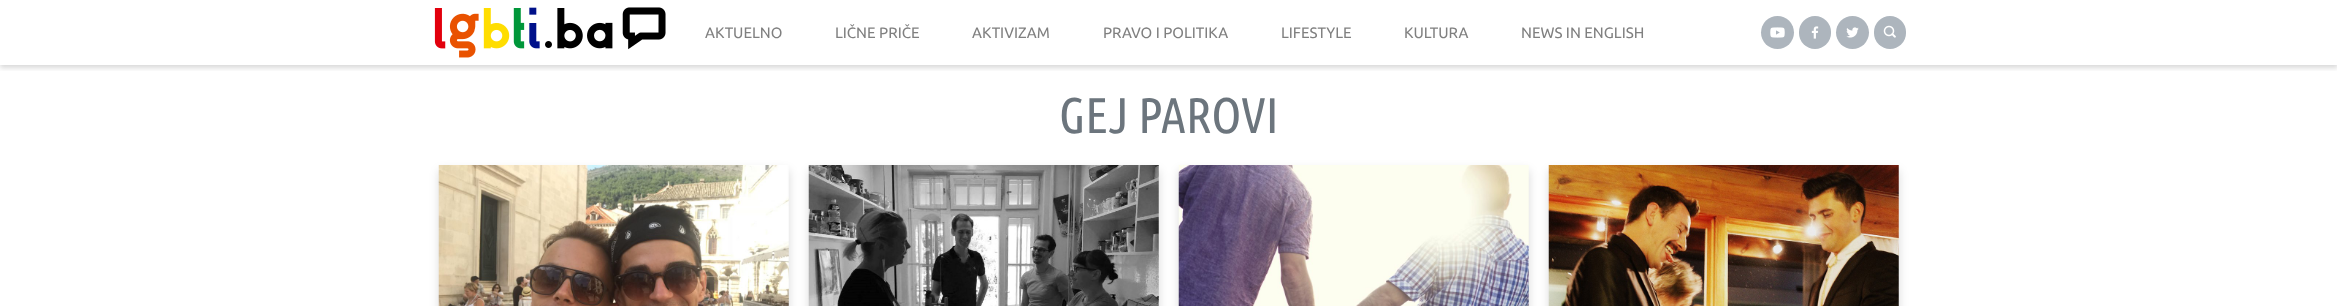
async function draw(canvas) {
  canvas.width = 2337
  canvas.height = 306
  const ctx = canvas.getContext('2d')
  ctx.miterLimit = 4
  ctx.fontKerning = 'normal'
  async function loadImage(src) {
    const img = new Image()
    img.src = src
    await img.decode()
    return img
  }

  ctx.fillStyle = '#fff'
  ctx.fillRect(0, 0, 2337, 306)
  ctx.save()
  ctx.beginPath()
  ctx.rect(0, 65, 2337, 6)
  ctx.clip()
  ctx.fillStyle = '#00000026'
  ctx.filter = 'blur(2.5px)'
  ctx.beginPath()
  ctx.rect(0, 3, 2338, 65)
  ctx.fill()
  ctx.filter = 'none'
  ctx.restore()
  ctx.drawImage(await loadImage('image0.png'), 434, 7, 232, 51)
  ctx.font = '15px Ubuntu'
  ctx.fillStyle = '#808080'
  ctx.fillText('AKTUELNO', 705, 38)
  ctx.fillText('LIČNE PRIČE', 835, 38)
  ctx.fillText('AKTIVIZAM', 972, 38)
  ctx.fillText('PRAVO I POLITIKA', 1103, 38)
  ctx.fillText('LIFESTYLE', 1281, 38)
  ctx.fillText('KULTURA', 1404, 38)
  ctx.fillText('NEWS IN ENGLISH', 1521, 38)
  ctx.fillStyle = '#adb5bd'
  ctx.beginPath()
  ctx.arc(1777.5, 32.5, 16.5, 0, 2 * Math.PI)
  ctx.fill()
  ctx.drawImage(await loadImage('image1.png'), 1770, 27, 15, 11)
  ctx.beginPath()
  ctx.roundRect(1799, 16, 32, 33, 16)
  ctx.fill()
  ctx.drawImage(await loadImage('image2.png'), 1811, 26, 8, 13)
  ctx.beginPath()
  ctx.arc(1852.5, 32.5, 16.5, 0, 2 * Math.PI)
  ctx.fill()
  ctx.drawImage(await loadImage('image3.png'), 1846, 27, 13, 11)
  ctx.beginPath()
  ctx.roundRect(1874, 16, 32, 33, 16)
  ctx.fill()
  ctx.drawImage(await loadImage('image4.png'), 1883, 25, 13, 13)
  ctx.font = '50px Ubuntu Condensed'
  ctx.fillStyle = '#6c757d'
  ctx.fillText('GEJ PAROVI', 1059, 133)
  ctx.fillStyle = '#00000026'
  ctx.filter = 'blur(5px)'
  ctx.beginPath()
  ctx.roundRect(439, 170, 350, 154, 3)
  ctx.fill()
  ctx.filter = 'none'
  ctx.drawImage(await loadImage('image5.png'), 438, 165, 351, 141)
  ctx.filter = 'blur(5px)'
  ctx.beginPath()
  ctx.roundRect(809, 170, 350, 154, 3)
  ctx.fill()
  ctx.filter = 'none'
  ctx.drawImage(await loadImage('image6.png'), 808, 165, 351, 141)
  ctx.filter = 'blur(5px)'
  ctx.beginPath()
  ctx.roundRect(1179, 170, 350, 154, 3)
  ctx.fill()
  ctx.filter = 'none'
  ctx.drawImage(await loadImage('image7.png'), 1178, 165, 351, 141)
  ctx.filter = 'blur(5px)'
  ctx.beginPath()
  ctx.roundRect(1549, 170, 350, 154, 3)
  ctx.fill()
  ctx.filter = 'none'
  ctx.drawImage(await loadImage('image8.png'), 1548, 165, 351, 141)
}

draw(document.querySelector('canvas'))
